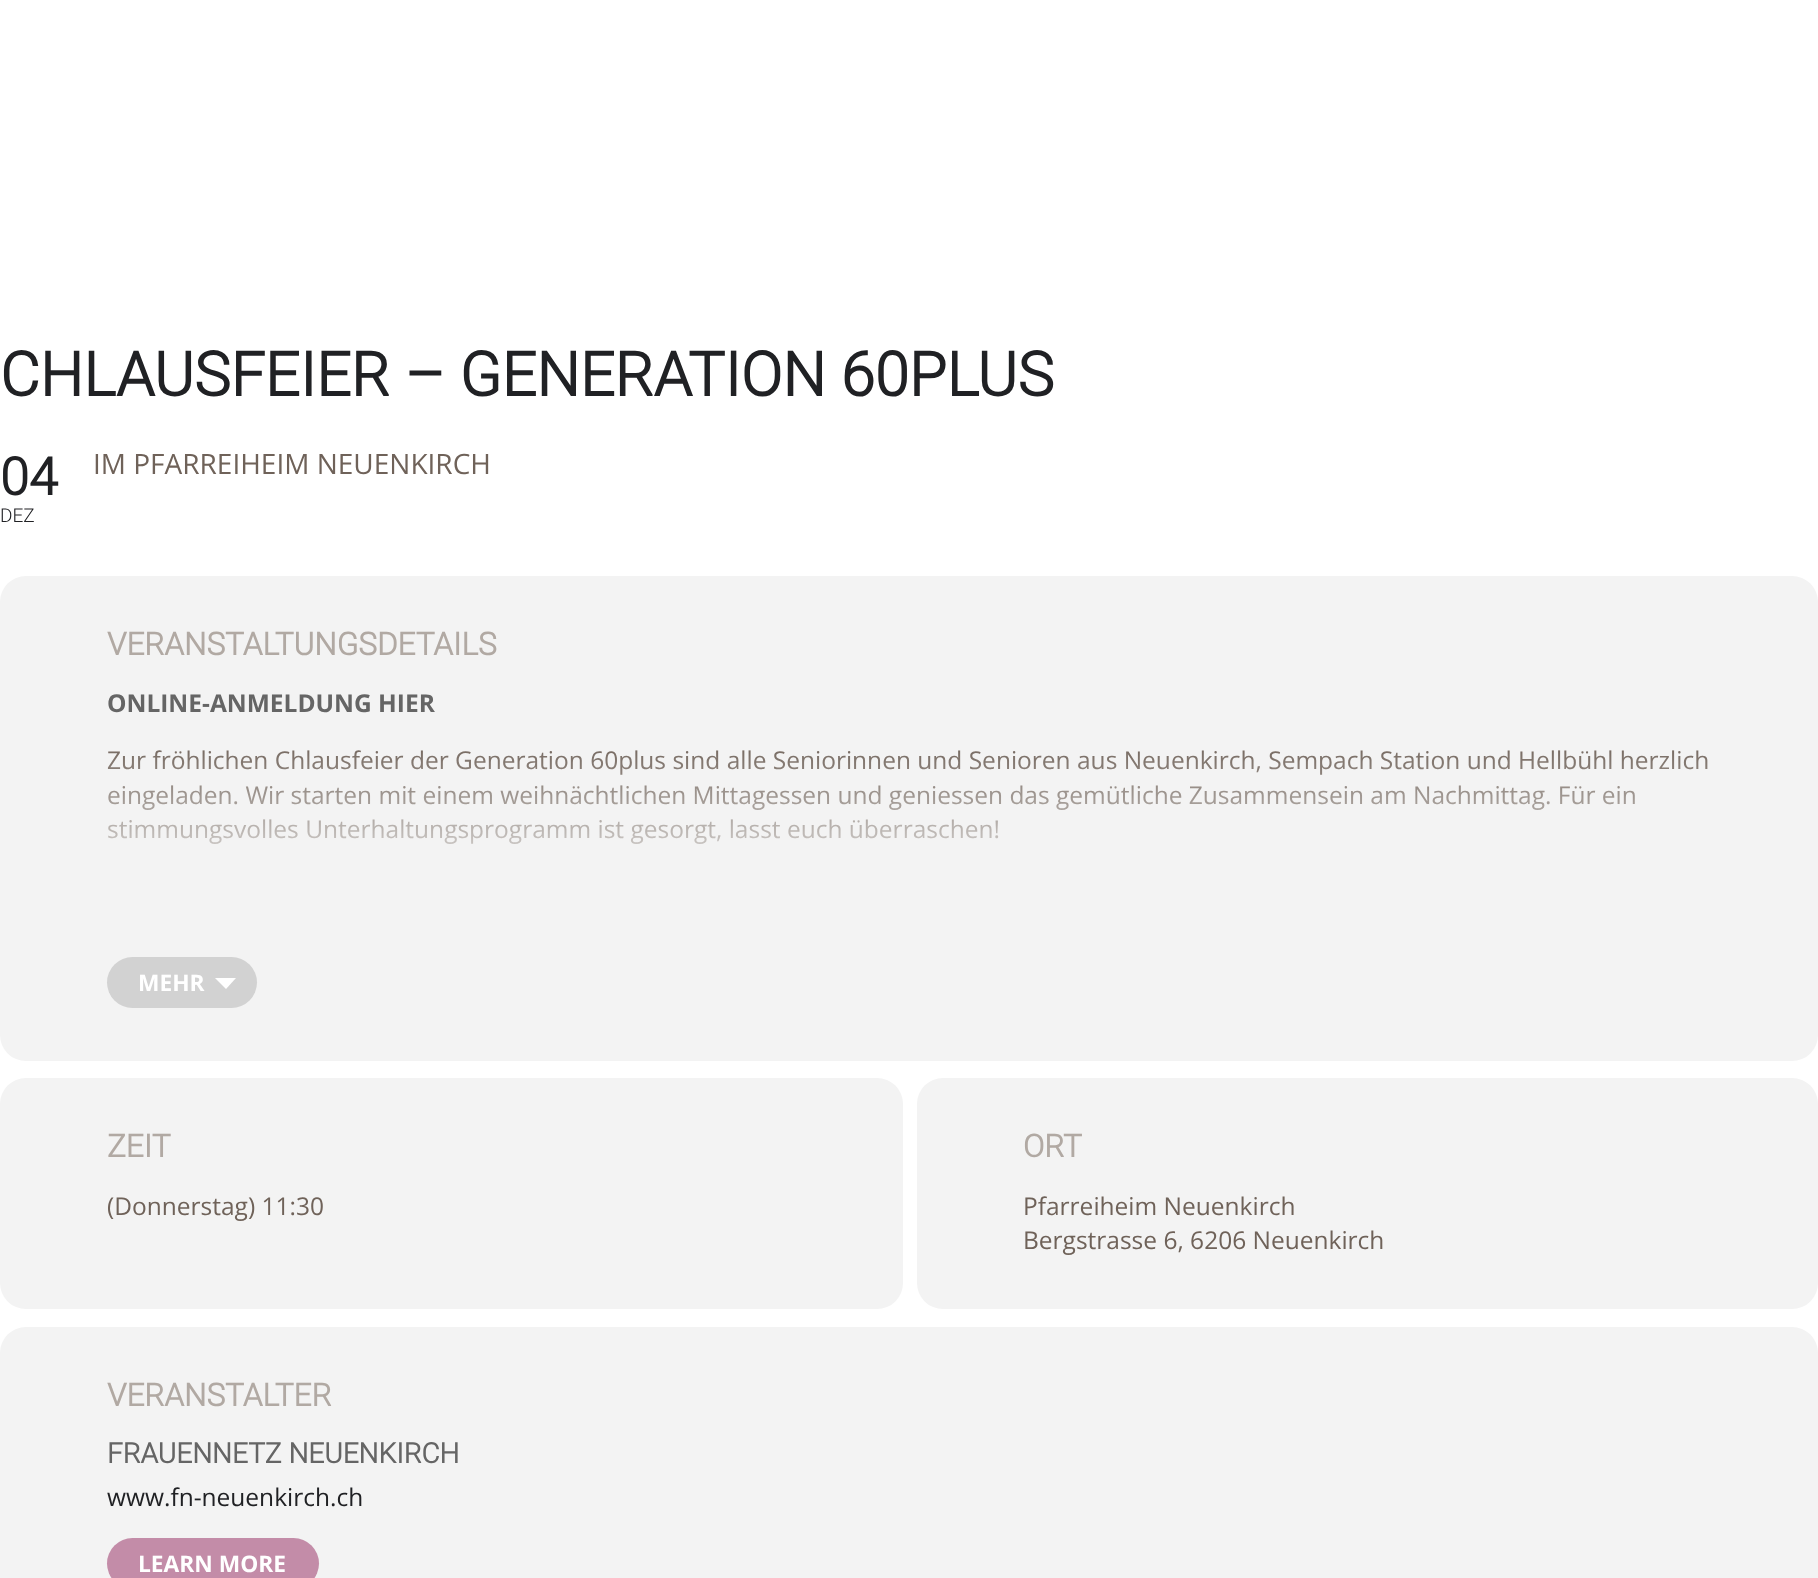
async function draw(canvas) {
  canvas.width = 1818
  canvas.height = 1578
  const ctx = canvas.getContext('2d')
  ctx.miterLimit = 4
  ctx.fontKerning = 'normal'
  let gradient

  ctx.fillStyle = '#fff'
  ctx.fillRect(0, 0, 1818, 1578)
  ctx.font = 'bold 61.25px Roboto'
  ctx.fillStyle = '#202124'
  ctx.fillText('CHLAUSFEIER – GENERATION 60PLUS', 0, 396)
  ctx.font = 'bold 52px Roboto'
  ctx.fillText('04', 0, 495)
  ctx.font = '300 19px Roboto'
  ctx.fillText('DEZ', 0, 522)
  ctx.font = '28px Open Sans'
  ctx.fillStyle = '#6f6259'
  ctx.fillText('IM PFARREIHEIM NEUENKIRCH', 93, 474)
  ctx.fillStyle = '#f3f3f3'
  ctx.beginPath()
  ctx.roundRect(0, 576, 1818, 485, 26)
  ctx.fill()
  ctx.font = 'bold 31.5px Roboto'
  ctx.fillStyle = '#b1a9a3'
  ctx.fillText('VERANSTALTUNGSDETAILS', 107, 655)
  ctx.font = 'bold 24.5px Open Sans'
  ctx.fillStyle = '#656565'
  ctx.fillText('ONLINE-ANMELDUNG HIER', 107, 712)
  ctx.font = '24.5px Open Sans'
  ctx.fillStyle = '#6f6259'
  ctx.fillText('Zur fröhlichen Chlausfeier der Generation 60plus sind alle Seniorinnen und Senioren aus Neuenkirch, Sempach Station und Hellbühl herzlich', 107, 769)
  ctx.fillText('eingeladen. Wir starten mit einem weihnächtlichen Mittagessen und geniessen das gemütliche Zusammensein am Nachmittag. Für ein', 107, 804)
  ctx.fillText('stimmungsvolles Unterhaltungsprogramm ist gesorgt, lasst euch überraschen!', 107, 838)
  gradient = ctx.createLinearGradient(936, 949, 936, 686)
  gradient.addColorStop(0.2, '#f3f3f3')
  gradient.addColorStop(0.8, '#f3f3f300')
  ctx.fillStyle = gradient
  ctx.fillRect(107, 750, 1600, 94)
  ctx.fillStyle = '#d2d2d2'
  ctx.beginPath()
  ctx.roundRect(107, 957, 150, 51, 25.5)
  ctx.fill()
  ctx.font = 'bold 22.75px Open Sans'
  ctx.fillStyle = '#fff'
  ctx.fillText('MEHR', 138, 991)
  ctx.beginPath()
  ctx.moveTo(215, 978)
  ctx.lineTo(236, 978)
  ctx.lineTo(226, 989)
  ctx.closePath()
  ctx.fill()
  ctx.fillStyle = '#f3f3f3'
  ctx.beginPath()
  ctx.roundRect(0, 1078, 903, 231, 26)
  ctx.fill()
  ctx.font = 'bold 31.5px Roboto'
  ctx.fillStyle = '#b1a9a3'
  ctx.fillText('ZEIT', 107, 1157)
  ctx.font = '24.5px Open Sans'
  ctx.fillStyle = '#6f6259'
  ctx.fillText('(Donnerstag) 11:30', 107, 1215)
  ctx.fillStyle = '#f3f3f3'
  ctx.beginPath()
  ctx.roundRect(917, 1078, 901, 231, 26)
  ctx.fill()
  ctx.font = 'bold 31.5px Roboto'
  ctx.fillStyle = '#b1a9a3'
  ctx.fillText('ORT', 1023, 1157)
  ctx.font = '24.5px Open Sans'
  ctx.fillStyle = '#6f6259'
  ctx.fillText('Pfarreiheim Neuenkirch', 1023, 1215)
  ctx.fillText('Bergstrasse 6, 6206 Neuenkirch', 1023, 1249)
  ctx.fillStyle = '#f3f3f3'
  ctx.beginPath()
  ctx.roundRect(0, 1327, 1818, 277, 26)
  ctx.fill()
  ctx.font = 'bold 31.5px Roboto'
  ctx.fillStyle = '#b1a9a3'
  ctx.fillText('VERANSTALTER', 107, 1406)
  ctx.font = 'bold 28px Roboto'
  ctx.fillStyle = '#656565'
  ctx.fillText('FRAUENNETZ NEUENKIRCH', 107, 1463)
  ctx.font = '24.5px Open Sans'
  ctx.fillStyle = '#202124'
  ctx.fillText('www.fn-neuenkirch.ch', 107, 1506)
  ctx.fillStyle = '#c38ca8'
  ctx.beginPath()
  ctx.roundRect(107, 1538, 212, 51, 25.5)
  ctx.fill()
  ctx.font = 'bold 22.75px Open Sans'
  ctx.fillStyle = '#fff'
  ctx.fillText('LEARN MORE', 138, 1572)
}

draw(document.querySelector('canvas'))
